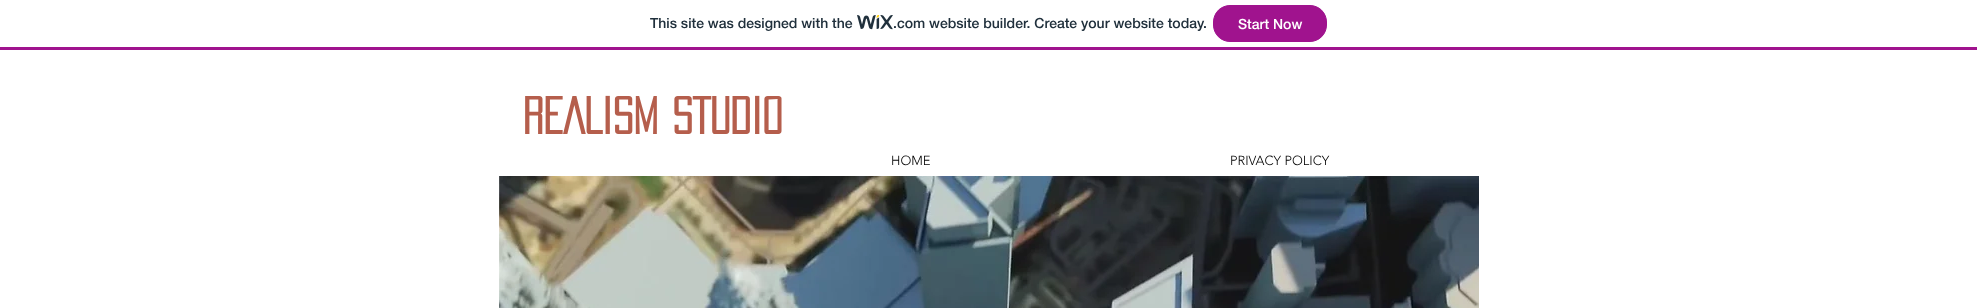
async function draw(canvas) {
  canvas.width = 1977
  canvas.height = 308
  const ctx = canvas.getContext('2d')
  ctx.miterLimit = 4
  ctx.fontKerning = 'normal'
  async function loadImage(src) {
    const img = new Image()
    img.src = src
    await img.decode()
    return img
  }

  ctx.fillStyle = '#fff'
  ctx.fillRect(0, 0, 1977, 308)
  ctx.fillStyle = '#a0138e'
  ctx.fillRect(0, 47, 1977, 3)
  ctx.font = '500 14px "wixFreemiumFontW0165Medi"'
  ctx.fillStyle = '#20303c'
  ctx.fillText('This site was designed with the', 650, 28)
  ctx.drawImage(await loadImage('image0.png'), 857, 15, 36, 15)
  ctx.fillText('.com website builder. Create your website today.', 893, 28)
  ctx.fillStyle = '#a0138e'
  ctx.beginPath()
  ctx.roundRect(1213.5, 5.5, 113, 36, 16.5)
  ctx.fill()
  ctx.strokeStyle = '#a0138e'
  ctx.stroke()
  ctx.fillStyle = '#fff'
  ctx.fillText('Start Now', 1238, 29)
  ctx.font = 'bold 46px "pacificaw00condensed"'
  ctx.fillStyle = '#b55e4c'
  ctx.fillText('REALISM STUDIO', 523, 134)
  ctx.font = '300 13px "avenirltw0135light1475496"'
  ctx.fillStyle = '#000'
  ctx.fillText('HOME', 891, 165)
  ctx.fillText('PRIVACY POLICY', 1230, 165)
  ctx.drawImage(await loadImage('image1.png'), 499, 176, 980, 132)
}

draw(document.querySelector('canvas'))
